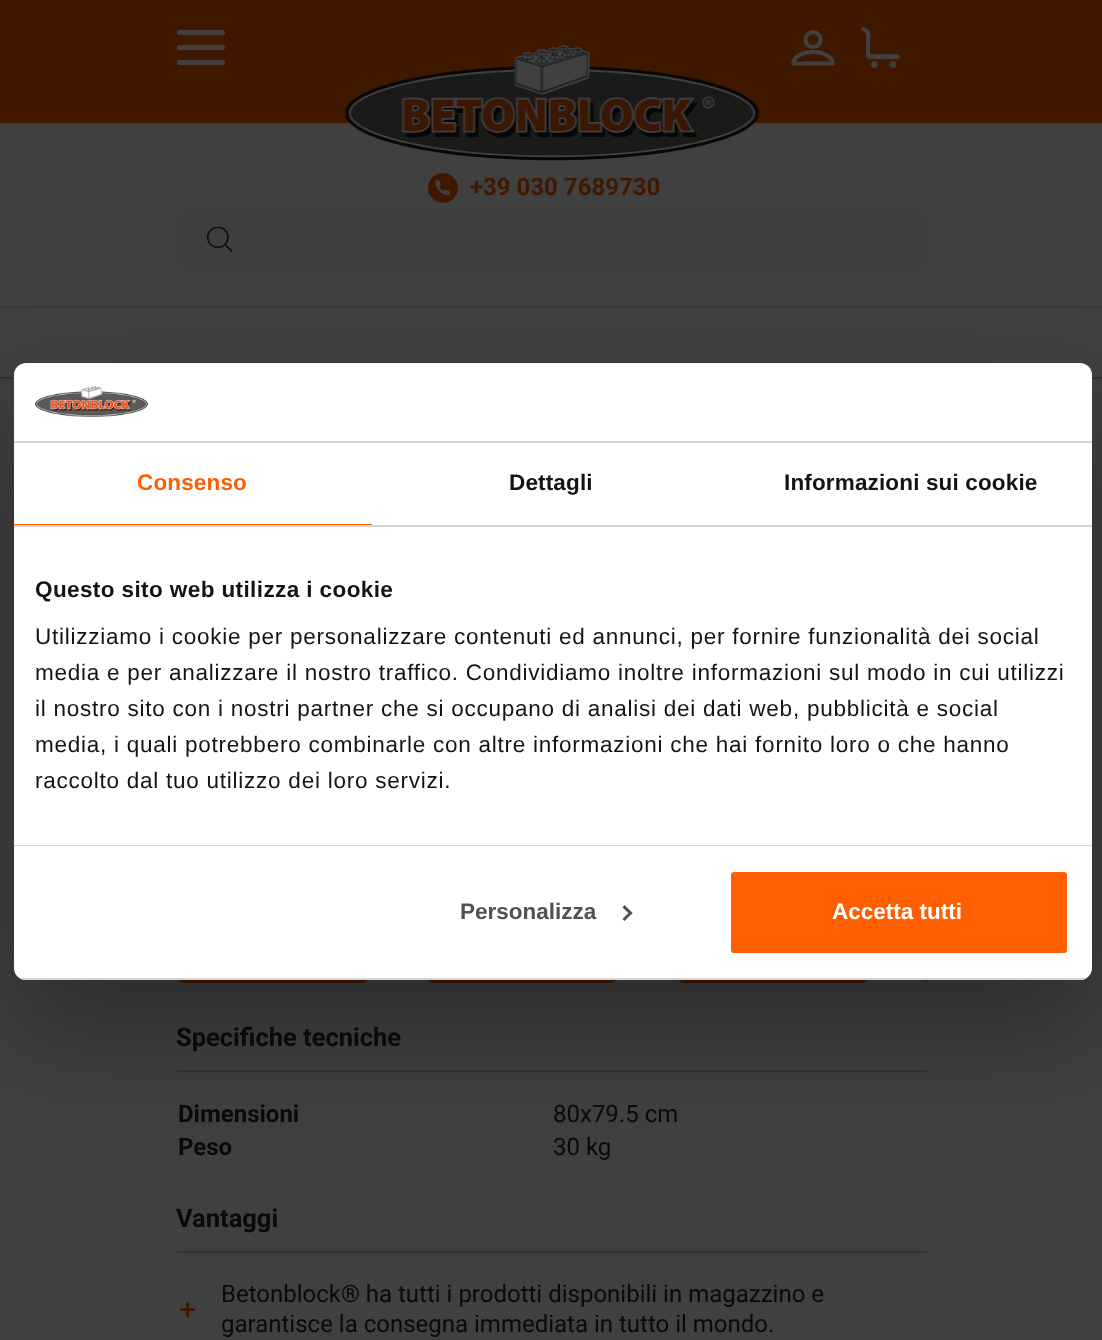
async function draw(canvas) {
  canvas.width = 1102
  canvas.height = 1340
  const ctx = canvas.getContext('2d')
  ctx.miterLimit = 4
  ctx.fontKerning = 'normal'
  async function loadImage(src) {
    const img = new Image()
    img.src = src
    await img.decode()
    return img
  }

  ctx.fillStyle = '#404040'
  ctx.fillRect(0, 0, 1102, 1340)
  ctx.fillStyle = '#383838'
  ctx.fillRect(0, 306, 1102, 2)
  ctx.fillStyle = '#401800'
  ctx.fillRect(0, 0, 1102, 123)
  ctx.fillStyle = '#404040'
  ctx.beginPath()
  ctx.roundRect(177, 45, 48, 5, 2.5)
  ctx.fill()
  ctx.beginPath()
  ctx.roundRect(177, 30, 48, 5, 2.5)
  ctx.fill()
  ctx.beginPath()
  ctx.roundRect(177, 60, 48, 5, 2.5)
  ctx.fill()
  ctx.drawImage(await loadImage('image0.png'), 345, 45, 415, 116)
  ctx.beginPath()
  ctx.moveTo(813.5, 52)
  ctx.bezierCurveTo(797.5, 52, 793.5, 59.5, 793.5, 63.5)
  ctx.lineTo(832.5, 63.5)
  ctx.bezierCurveTo(832.5, 59.5, 827.5, 52, 813.5, 52)
  ctx.closePath()
  ctx.strokeStyle = '#404040'
  ctx.lineWidth = 4.2
  ctx.stroke()
  ctx.beginPath()
  ctx.arc(813, 39.5, 7.5, 0, 2 * Math.PI)
  ctx.stroke()
  ctx.drawImage(await loadImage('image1.png'), 861, 27, 39, 41)
  ctx.fillStyle = '#401800'
  ctx.beginPath()
  ctx.arc(443, 188, 15, 0, 2 * Math.PI)
  ctx.fill()
  ctx.drawImage(await loadImage('image2.png'), 435, 180, 15, 16)
  ctx.font = 'bold 24px Roboto'
  ctx.fillText('+39 030 7689730', 470, 195)
  ctx.fillStyle = '#3e3e3d'
  ctx.beginPath()
  ctx.roundRect(177, 210, 750, 60, 8)
  ctx.fill()
  ctx.drawImage(await loadImage('image3.png'), 207, 227, 26, 25)
  ctx.fillStyle = '#313131'
  ctx.fillRect(0, 377, 1102, 2)
  ctx.fillStyle = '#401800'
  ctx.beginPath()
  ctx.roundRect(178, 933, 190, 49, 7)
  ctx.fill()
  ctx.strokeStyle = '#401800'
  ctx.lineWidth = 2
  ctx.stroke()
  ctx.beginPath()
  ctx.roundRect(427, 933, 190, 49, 7)
  ctx.fill()
  ctx.stroke()
  ctx.beginPath()
  ctx.roundRect(678, 933, 190, 49, 7)
  ctx.fill()
  ctx.stroke()
  ctx.beginPath()
  ctx.roundRect(926, 932, 1, 51, [8, 0, 0, 8])
  ctx.fill()
  ctx.fillStyle = '#313131'
  ctx.fillRect(177, 1070, 750, 2)
  ctx.fillStyle = '#0000004d'
  ctx.filter = 'blur(51px)'
  ctx.beginPath()
  ctx.roundRect(14, 411, 1078, 617, 12)
  ctx.fill()
  ctx.filter = 'none'
  ctx.fillStyle = '#fff'
  ctx.beginPath()
  ctx.roundRect(14, 363, 1078, 617, 12)
  ctx.fill()
  ctx.fillStyle = '#d6d6d6'
  ctx.fillRect(14, 441, 1078, 2)
  ctx.drawImage(await loadImage('image4.png'), 35, 386, 113, 31)
  ctx.fillRect(14, 525, 1078, 2)
  ctx.fillStyle = '#ff5f00'
  ctx.fillRect(14, 524, 358, 1)
  ctx.letterSpacing = '0.15px'
  ctx.font = 'bold 22.5px Liberation Sans'
  ctx.fillText('Consenso', 137, 490)
  ctx.fillStyle = '#141414'
  ctx.fillText('Dettagli', 509, 490)
  ctx.fillText('Informazioni sui cookie', 784, 490)
  ctx.fillStyle = '#d6d6d6'
  ctx.fillRect(14, 845, 1078, 1)
  ctx.letterSpacing = '0.4px'
  ctx.fillStyle = '#141414'
  ctx.fillText('Questo sito web utilizza i cookie', 35, 597)
  ctx.letterSpacing = '0.75px'
  ctx.font = '22.5px Liberation Sans'
  ctx.fillText('Utilizziamo i cookie per personalizzare contenuti ed annunci, per fornire funzionalità dei social', 35, 644)
  ctx.fillText('media e per analizzare il nostro traffico. Condividiamo inoltre informazioni sul modo in cui utilizzi', 35, 680)
  ctx.fillText('il nostro sito con i nostri partner che si occupano di analisi dei dati web, pubblicità e social', 35, 716)
  ctx.fillText('media, i quali potrebbero combinarle con altre informazioni che hai fornito loro o che hanno', 35, 752)
  ctx.fillText('raccolto dal tuo utilizzo dei loro servizi.', 35, 788)
  ctx.save()
  ctx.beginPath()
  ctx.roundRect(14, 363, 1078, 617, 12)
  ctx.clip()
  ctx.fillStyle = '#d6d6d6'
  ctx.fillRect(14, 978, 1078, 2)
  ctx.restore()
  ctx.letterSpacing = '0px'
  ctx.font = 'bold 22.5px Liberation Sans'
  ctx.fillStyle = '#555050'
  ctx.fillText('Personalizza', 460, 919)
  ctx.beginPath()
  ctx.moveTo(624.5, 905)
  ctx.lineTo(632.5, 913)
  ctx.lineTo(630.5, 915)
  ctx.lineTo(622.5, 907.5)
  ctx.closePath()
  ctx.fill()
  ctx.beginPath()
  ctx.moveTo(630.5, 911)
  ctx.lineTo(632.5, 913)
  ctx.lineTo(624.5, 921)
  ctx.lineTo(622.5, 919)
  ctx.closePath()
  ctx.fill()
  ctx.fillStyle = '#ff5f00'
  ctx.beginPath()
  ctx.roundRect(729.5, 870.5, 339, 84, 4.5)
  ctx.fill()
  ctx.strokeStyle = '#fff'
  ctx.lineWidth = 3
  ctx.stroke()
  ctx.fillStyle = '#fff'
  ctx.fillText('Accetta tutti', 832, 919)
  ctx.font = 'bold 25.5px Roboto'
  ctx.fillStyle = '#0a0a0a'
  ctx.fillText('Specifiche tecniche', 176, 1046)
  ctx.font = 'bold 24px Roboto'
  ctx.fillText('Dimensioni', 178, 1122)
  ctx.font = '24px Roboto'
  ctx.fillText('80x79.5 cm', 553, 1122)
  ctx.font = 'bold 24px Roboto'
  ctx.fillText('Peso', 178, 1155)
  ctx.font = '24px Roboto'
  ctx.fillText('30 kg', 553, 1155)
  ctx.fillStyle = '#313131'
  ctx.fillRect(177, 1251, 750, 2)
  ctx.font = 'bold 25.5px Roboto'
  ctx.fillStyle = '#0a0a0a'
  ctx.fillText('Vantaggi', 176, 1227)
  ctx.font = '24px Roboto'
  ctx.fillText('Betonblock® ha tutti i prodotti disponibili in magazzino e', 221, 1302)
  ctx.beginPath()
  ctx.moveTo(181.5, 1309.5)
  ctx.lineTo(193.5, 1309.5)
  ctx.moveTo(187.5, 1303.5)
  ctx.lineTo(187.5, 1315.5)
  ctx.strokeStyle = '#401800'
  ctx.lineCap = 'round'
  ctx.stroke()
  ctx.fillText('garantisce la consegna immediata in tutto il mondo.', 221, 1332)
}

draw(document.querySelector('canvas'))
